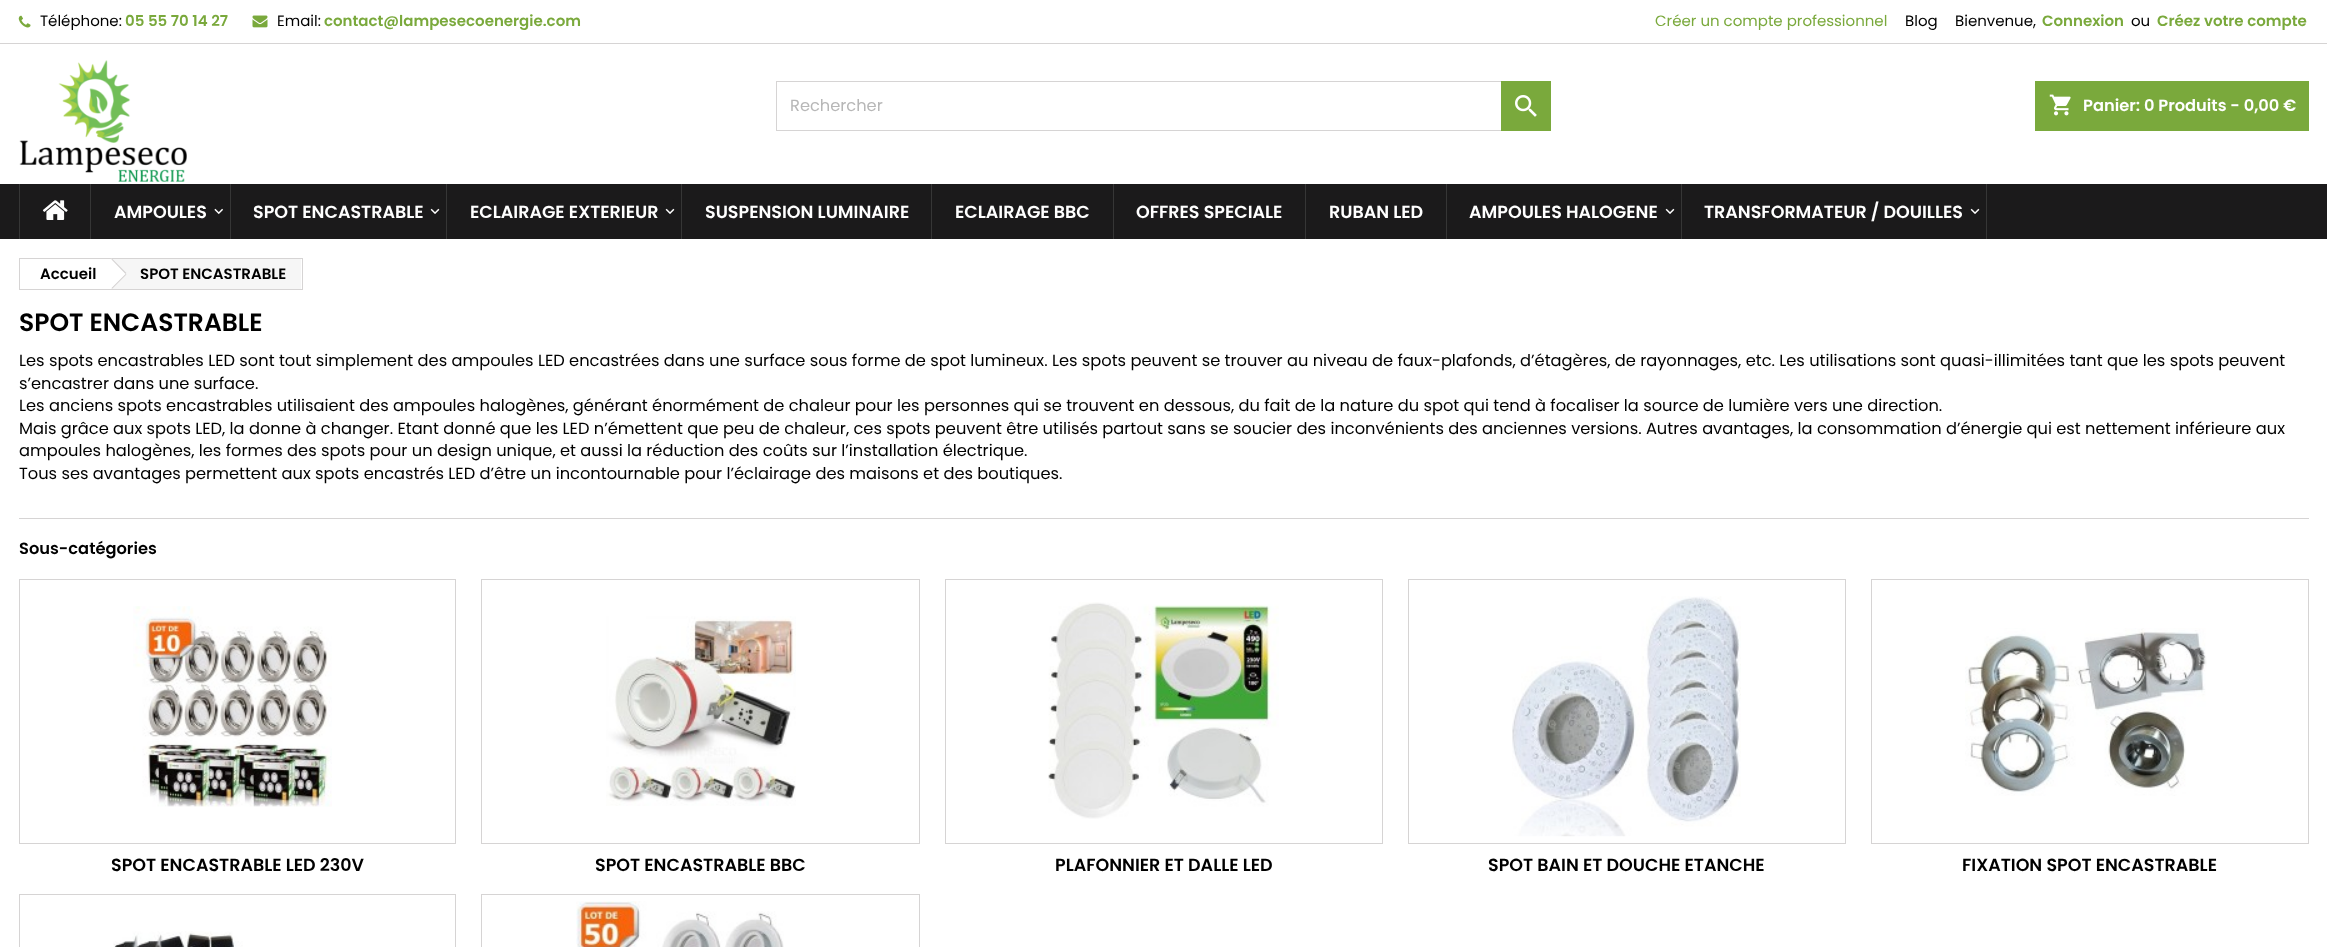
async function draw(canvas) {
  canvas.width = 2327
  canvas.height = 947
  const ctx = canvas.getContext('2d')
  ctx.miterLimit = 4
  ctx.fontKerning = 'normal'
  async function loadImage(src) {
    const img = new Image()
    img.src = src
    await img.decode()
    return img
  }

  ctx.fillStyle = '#fff'
  ctx.fillRect(0, 0, 2327, 947)
  ctx.fillStyle = '#d6d4d4'
  ctx.fillRect(0, 43, 2327, 1)
  ctx.drawImage(await loadImage('image0.png'), 18, 15, 13, 13)
  ctx.font = '15px Poppins'
  ctx.fillStyle = '#000'
  ctx.fillText('Téléphone:', 40, 26)
  ctx.font = '600 15px Poppins'
  ctx.fillStyle = '#7aa93c'
  ctx.fillText('05 55 70 14 27', 125, 26)
  ctx.drawImage(await loadImage('image1.png'), 252, 15, 16, 13)
  ctx.font = '15px Poppins'
  ctx.fillStyle = '#000'
  ctx.fillText('Email:', 277, 26)
  ctx.font = '600 15px Poppins'
  ctx.fillStyle = '#7aa93c'
  ctx.fillText('contact@lampesecoenergie.com', 324, 26)
  ctx.font = '15px Poppins'
  ctx.fillText('Créer un compte professionnel', 1655, 26)
  ctx.fillStyle = '#000'
  ctx.fillText('Blog', 1905, 26)
  ctx.fillText('Bienvenue,', 1955, 26)
  ctx.font = '600 15px Poppins'
  ctx.fillStyle = '#7aa93c'
  ctx.fillText('Connexion', 2042, 26)
  ctx.font = '15px Poppins'
  ctx.fillStyle = '#000'
  ctx.fillText('ou', 2131, 26)
  ctx.font = '600 15px Poppins'
  ctx.fillStyle = '#7aa93c'
  ctx.fillText('Créez votre compte', 2157, 26)
  ctx.drawImage(await loadImage('image2.png'), 19, 60, 168, 122)
  ctx.strokeStyle = '#d6d4d4'
  ctx.strokeRect(776.5, 81.5, 774, 49)
  ctx.font = '16.25px Poppins'
  ctx.fillStyle = '#b7b7b7'
  ctx.fillText('Rechercher', 790, 111)
  ctx.fillStyle = '#7aa93c'
  ctx.fillRect(1501, 81, 50, 50)
  ctx.drawImage(await loadImage('image3.png'), 1515, 95, 22, 22)
  ctx.fillRect(2035, 81, 274, 50)
  ctx.drawImage(await loadImage('image4.png'), 2049, 94, 22, 22)
  ctx.font = '600 16.25px Poppins'
  ctx.fillStyle = '#fff'
  ctx.fillText('Panier: 0 Produits - 0,00 €', 2083, 111)
  ctx.fillStyle = '#1b1a1b'
  ctx.fillRect(0, 184, 2327, 55)
  ctx.fillStyle = '#363636'
  ctx.fillRect(19, 184, 1, 55)
  ctx.drawImage(await loadImage('image5.png'), 42, 200, 26, 20)
  ctx.fillRect(90, 184, 1, 55)
  ctx.font = '600 17.5px Poppins'
  ctx.fillStyle = '#fff'
  ctx.fillText('AMPOULES', 114, 218)
  ctx.drawImage(await loadImage('image6.png'), 214, 208, 9, 7)
  ctx.fillStyle = '#363636'
  ctx.fillRect(230, 184, 1, 55)
  ctx.fillStyle = '#fff'
  ctx.fillText('SPOT ENCASTRABLE', 253, 218)
  ctx.drawImage(await loadImage('image7.png'), 430, 208, 10, 6)
  ctx.fillStyle = '#363636'
  ctx.fillRect(446, 184, 1, 55)
  ctx.fillStyle = '#fff'
  ctx.fillText('ECLAIRAGE EXTERIEUR', 470, 218)
  ctx.drawImage(await loadImage('image7.png'), 665, 208, 10, 6)
  ctx.fillStyle = '#363636'
  ctx.fillRect(681, 184, 1, 55)
  ctx.fillStyle = '#fff'
  ctx.fillText('SUSPENSION LUMINAIRE', 705, 218)
  ctx.fillStyle = '#363636'
  ctx.fillRect(931, 184, 1, 55)
  ctx.fillStyle = '#fff'
  ctx.fillText('ECLAIRAGE BBC', 955, 218)
  ctx.fillStyle = '#363636'
  ctx.fillRect(1113, 184, 1, 55)
  ctx.fillStyle = '#fff'
  ctx.fillText('OFFRES SPECIALE', 1136, 218)
  ctx.fillStyle = '#363636'
  ctx.fillRect(1305, 184, 1, 55)
  ctx.fillStyle = '#fff'
  ctx.fillText('RUBAN LED', 1329, 218)
  ctx.fillStyle = '#363636'
  ctx.fillRect(1446, 184, 1, 55)
  ctx.fillStyle = '#fff'
  ctx.fillText('AMPOULES HALOGENE', 1469, 218)
  ctx.drawImage(await loadImage('image7.png'), 1665, 208, 10, 6)
  ctx.fillStyle = '#363636'
  ctx.fillRect(1986, 184, 1, 55)
  ctx.fillRect(1681, 184, 1, 55)
  ctx.fillStyle = '#fff'
  ctx.fillText('TRANSFORMATEUR / DOUILLES', 1704, 218)
  ctx.drawImage(await loadImage('image7.png'), 1970, 208, 10, 6)
  ctx.strokeRect(19.5, 258.5, 283, 31)
  ctx.font = '600 15px Poppins'
  ctx.fillStyle = '#000'
  ctx.fillText('Accueil', 40, 279)
  ctx.fillStyle = '#f6f6f6'
  ctx.fillRect(113, 259, 188, 30)
  ctx.fillStyle = '#fff'
  ctx.beginPath()
  ctx.moveTo(113, 259.5)
  ctx.lineTo(125.5, 272)
  ctx.bezierCurveTo(126.5, 273, 126.5, 274.5, 125.5, 275.5)
  ctx.lineTo(113, 288)
  ctx.bezierCurveTo(112, 289, 110.5, 289, 109.5, 288)
  ctx.lineTo(97, 275.5)
  ctx.bezierCurveTo(96, 274.5, 96, 273, 97, 272)
  ctx.lineTo(109.5, 259.5)
  ctx.bezierCurveTo(110.5, 258.5, 112, 258.5, 113, 259.5)
  ctx.closePath()
  ctx.fill()
  ctx.fillStyle = '#d6d4d4'
  ctx.beginPath()
  ctx.moveTo(112, 258.5)
  ctx.lineTo(126.5, 273)
  ctx.lineTo(125.5, 274)
  ctx.lineTo(111.5, 259.5)
  ctx.closePath()
  ctx.moveTo(125.5, 274)
  ctx.lineTo(126.5, 274.5)
  ctx.lineTo(112, 289)
  ctx.lineTo(111.5, 288)
  ctx.closePath()
  ctx.fill()
  ctx.fillStyle = '#000'
  ctx.fillText('SPOT ENCASTRABLE', 140, 279)
  ctx.font = '600 25px Poppins'
  ctx.fillText('SPOT ENCASTRABLE', 19, 331)
  ctx.font = '16.25px Poppins'
  ctx.fillText('Les spots encastrables LED sont tout simplement des ampoules LED encastrées dans une surface sous forme de spot lumineux. Les spots peuvent se trouver au niveau de faux-plafonds, d’étagères, de rayonnages, etc. Les utilisations sont quasi-illimitées tant que les spots peuvent', 19, 366)
  ctx.fillText('s’encastrer dans une surface.', 19, 389)
  ctx.fillText('Les anciens spots encastrables utilisaient des ampoules halogènes, générant énormément de chaleur pour les personnes qui se trouvent en dessous, du fait de la nature du spot qui tend à focaliser la source de lumière vers une direction.', 19, 411)
  ctx.fillText('Mais grâce aux spots LED, la donne à changer. Etant donné que les LED n’émettent que peu de chaleur, ces spots peuvent être utilisés partout sans se soucier des inconvénients des anciennes versions. Autres avantages, la consommation d’énergie qui est nettement inférieure aux', 19, 434)
  ctx.fillText('ampoules halogènes, les formes des spots pour un design unique, et aussi la réduction des coûts sur l’installation électrique.', 19, 456)
  ctx.fillText('Tous ses avantages permettent aux spots encastrés LED d’être un incontournable pour l’éclairage des maisons et des boutiques.', 19, 479)
  ctx.fillStyle = '#d6d4d4'
  ctx.fillRect(19, 518, 2290, 1)
  ctx.font = '600 16.25px Poppins'
  ctx.fillStyle = '#000'
  ctx.fillText('Sous-catégories', 19, 554)
  ctx.strokeRect(19.5, 579.5, 436, 264)
  ctx.drawImage(await loadImage('image8.png'), 133, 606, 199, 201)
  ctx.font = '600 17.5px Poppins'
  ctx.fillText('SPOT ENCASTRABLE LED 230V', 111, 871)
  ctx.strokeRect(481.5, 579.5, 438, 264)
  ctx.drawImage(await loadImage('image9.png'), 606, 616, 190, 190)
  ctx.fillText('SPOT ENCASTRABLE BBC', 595, 871)
  ctx.strokeRect(945.5, 579.5, 437, 264)
  ctx.drawImage(await loadImage('image10.png'), 1048, 602, 231, 217)
  ctx.fillText('PLAFONNIER ET DALLE LED', 1055, 871)
  ctx.strokeRect(1408.5, 579.5, 437, 264)
  ctx.drawImage(await loadImage('image11.png'), 1512, 596, 229, 241)
  ctx.fillText('SPOT BAIN ET DOUCHE ETANCHE', 1488, 871)
  ctx.strokeRect(1871.5, 579.5, 437, 264)
  ctx.drawImage(await loadImage('image12.png'), 1965, 628, 242, 168)
  ctx.fillText('FIXATION SPOT ENCASTRABLE', 1962, 871)
  ctx.strokeRect(19.5, 894.5, 436, 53)
  ctx.drawImage(await loadImage('image13.png'), 113, 931, 130, 16)
  ctx.strokeRect(481.5, 894.5, 438, 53)
  ctx.drawImage(await loadImage('image14.png'), 576, 901, 208, 46)
}

draw(document.querySelector('canvas'))
